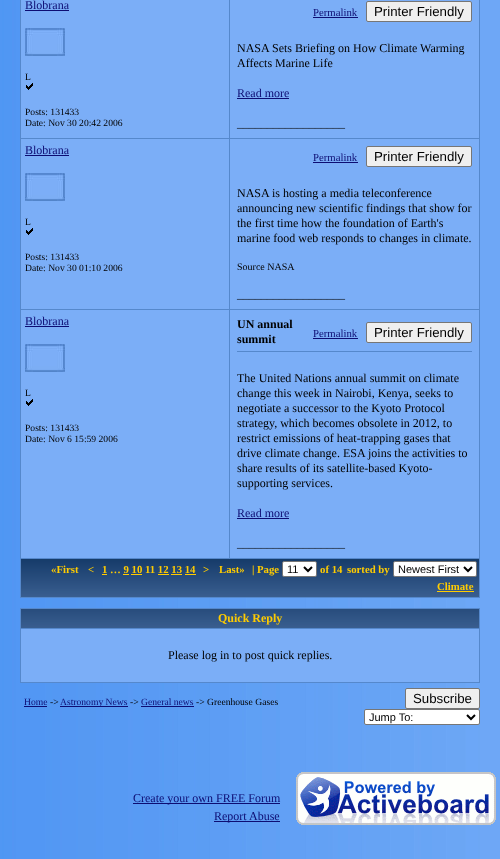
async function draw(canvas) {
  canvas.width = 500
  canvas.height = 859
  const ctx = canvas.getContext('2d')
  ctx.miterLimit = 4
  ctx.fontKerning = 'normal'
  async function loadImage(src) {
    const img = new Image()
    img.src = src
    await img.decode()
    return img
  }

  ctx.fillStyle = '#fff'
  ctx.fillRect(0, 0, 500, 859)
  ctx.drawImage(await loadImage('image0.png'), 0, 0, 500, 859)
  ctx.fillStyle = '#58c'
  ctx.fillRect(479, 0, 1, 598)
  ctx.fillRect(20, 597, 460, 1)
  ctx.fillRect(20, 0, 1, 598)
  ctx.fillStyle = '#7baef7'
  ctx.fillRect(21, 0, 208, 138)
  ctx.font = '12px Liberation Serif'
  ctx.fillStyle = '#0d0d73'
  ctx.fillText('Blobrana', 25, 9)
  ctx.fillRect(25, 10, 44, 1)
  ctx.drawImage(await loadImage('image1.png'), 25, 28, 40, 28)
  ctx.font = '9.6px Liberation Serif'
  ctx.fillStyle = '#000'
  ctx.fillText('L', 25, 80)
  ctx.drawImage(await loadImage('image2.png'), 26, 83, 7, 7)
  ctx.fillText('Posts: 131433', 25, 115)
  ctx.fillText('Date: Nov 30 20:42 2006', 25, 126)
  ctx.fillStyle = '#7baef7'
  ctx.fillRect(230, 0, 249, 138)
  ctx.fillStyle = '#58c'
  ctx.fillRect(229, 138, 251, 1)
  ctx.fillRect(229, 309, 251, 1)
  ctx.fillRect(20, 558, 460, 1)
  ctx.fillRect(229, 309, 1, 250)
  ctx.fillRect(20, 309, 210, 1)
  ctx.fillRect(229, 138, 1, 172)
  ctx.fillRect(20, 138, 210, 1)
  ctx.fillRect(229, 0, 1, 139)
  ctx.font = '10.75px Liberation Serif'
  ctx.fillStyle = '#0d0d73'
  ctx.fillText('Permalink', 313, 16)
  ctx.fillRect(313, 17, 45, 1)
  ctx.fillStyle = '#efefef'
  ctx.beginPath()
  ctx.roundRect(366.5, 1.5, 105, 20, 1.5)
  ctx.fill()
  ctx.strokeStyle = '#767676'
  ctx.stroke()
  ctx.font = '13.25px Liberation Sans'
  ctx.fillStyle = '#000'
  ctx.fillText('Printer Friendly', 374, 16)
  ctx.font = '12px Liberation Serif'
  ctx.fillText('NASA Sets Briefing on How Climate Warming', 237, 52)
  ctx.fillText('Affects Marine Life', 237, 67)
  ctx.fillStyle = '#0d0d73'
  ctx.fillText('Read more', 237, 97)
  ctx.fillRect(237, 98, 52, 1)
  ctx.fillStyle = '#000'
  ctx.fillText('__________________', 237, 127)
  ctx.fillStyle = '#7baef7'
  ctx.fillRect(21, 139, 208, 170)
  ctx.fillStyle = '#0d0d73'
  ctx.fillText('Blobrana', 25, 154)
  ctx.fillRect(25, 155, 44, 1)
  ctx.drawImage(await loadImage('image1.png'), 25, 173, 40, 28)
  ctx.font = '9.6px Liberation Serif'
  ctx.fillStyle = '#000'
  ctx.fillText('L', 25, 225)
  ctx.drawImage(await loadImage('image2.png'), 26, 228, 7, 7)
  ctx.fillText('Posts: 131433', 25, 260)
  ctx.fillText('Date: Nov 30 01:10 2006', 25, 271)
  ctx.fillStyle = '#7baef7'
  ctx.fillRect(230, 139, 249, 170)
  ctx.font = '10.75px Liberation Serif'
  ctx.fillStyle = '#0d0d73'
  ctx.fillText('Permalink', 313, 161)
  ctx.fillRect(313, 162, 45, 1)
  ctx.fillStyle = '#efefef'
  ctx.beginPath()
  ctx.roundRect(366.5, 146.5, 105, 20, 1.5)
  ctx.fill()
  ctx.stroke()
  ctx.font = '13.25px Liberation Sans'
  ctx.fillStyle = '#000'
  ctx.fillText('Printer Friendly', 374, 161)
  ctx.font = '12px Liberation Serif'
  ctx.fillText('NASA is hosting a media teleconference', 237, 197)
  ctx.fillText('announcing new scientific findings that show for', 237, 212)
  ctx.fillText('the first time how the foundation of Earth\'s', 237, 227)
  ctx.fillText('marine food web responds to changes in climate.', 237, 242)
  ctx.font = '10px Liberation Serif'
  ctx.fillText('Source NASA', 237, 270)
  ctx.font = '12px Liberation Serif'
  ctx.fillText('__________________', 237, 298)
  ctx.fillStyle = '#7baef7'
  ctx.fillRect(21, 310, 208, 248)
  ctx.fillStyle = '#0d0d73'
  ctx.fillText('Blobrana', 25, 325)
  ctx.fillRect(25, 326, 44, 1)
  ctx.drawImage(await loadImage('image1.png'), 25, 344, 40, 28)
  ctx.font = '9.6px Liberation Serif'
  ctx.fillStyle = '#000'
  ctx.fillText('L', 25, 396)
  ctx.drawImage(await loadImage('image2.png'), 26, 399, 7, 7)
  ctx.fillText('Posts: 131433', 25, 431)
  ctx.fillText('Date: Nov 6 15:59 2006', 25, 442)
  ctx.fillStyle = '#7baef7'
  ctx.fillRect(230, 310, 249, 248)
  ctx.font = 'bold 12px Liberation Serif'
  ctx.fillStyle = '#000'
  ctx.fillText('UN annual', 237, 328)
  ctx.fillText('summit', 237, 343)
  ctx.font = '10.75px Liberation Serif'
  ctx.fillStyle = '#0d0d73'
  ctx.fillText('Permalink', 313, 337)
  ctx.fillRect(313, 338, 45, 1)
  ctx.fillStyle = '#efefef'
  ctx.beginPath()
  ctx.roundRect(366.5, 322.5, 105, 20, 1.5)
  ctx.fill()
  ctx.stroke()
  ctx.font = '13.25px Liberation Sans'
  ctx.fillStyle = '#000'
  ctx.fillText('Printer Friendly', 374, 337)
  ctx.fillStyle = '#58c'
  ctx.fillRect(237, 351, 235, 1)
  ctx.font = '12px Liberation Serif'
  ctx.fillStyle = '#000'
  ctx.fillText('The United Nations annual summit on climate', 237, 382)
  ctx.fillText('change this week in Nairobi, Kenya, seeks to', 237, 397)
  ctx.fillText('negotiate a successor to the Kyoto Protocol', 237, 412)
  ctx.fillText('strategy, which becomes obsolete in 2012, to', 237, 427)
  ctx.fillText('restrict emissions of heat-trapping gases that', 237, 442)
  ctx.fillText('drive climate change. ESA joins the activities to', 237, 457)
  ctx.fillText('share results of its satellite-based Kyoto-', 237, 472)
  ctx.fillText('supporting services.', 237, 487)
  ctx.fillStyle = '#0d0d73'
  ctx.fillText('Read more', 237, 517)
  ctx.fillRect(237, 518, 52, 1)
  ctx.fillStyle = '#000'
  ctx.fillText('__________________', 237, 547)
  ctx.drawImage(await loadImage('image3.png'), 21, 559, 458, 38)
  ctx.font = 'bold 10.75px Liberation Serif'
  ctx.fillStyle = '#fc0'
  ctx.fillText('«First', 51, 573)
  ctx.fillText('<', 88, 573)
  ctx.fillText('1 … 9 10 11 12 13 14', 102, 573)
  ctx.fillRect(102, 574, 5, 1)
  ctx.fillText('>', 203, 573)
  ctx.fillText('Last»', 219, 573)
  ctx.fillText('| Page', 252, 573)
  ctx.fillStyle = '#fff'
  ctx.beginPath()
  ctx.roundRect(282.5, 561.5, 34, 15, 1.5)
  ctx.fill()
  ctx.stroke()
  ctx.beginPath()
  ctx.moveTo(304, 567)
  ctx.lineTo(308, 571)
  ctx.lineTo(312, 567)
  ctx.strokeStyle = '#000'
  ctx.lineWidth = 2
  ctx.stroke()
  ctx.font = '11px Liberation Sans'
  ctx.fillStyle = '#000'
  ctx.fillText('11', 287, 573)
  ctx.font = 'bold 10.75px Liberation Serif'
  ctx.fillStyle = '#fc0'
  ctx.fillText('of 14', 320, 573)
  ctx.fillRect(123, 574, 6, 1)
  ctx.fillRect(131, 574, 11, 1)
  ctx.fillRect(158, 574, 11, 1)
  ctx.fillRect(171, 574, 11, 1)
  ctx.fillRect(185, 574, 11, 1)
  ctx.fillText('sorted by', 347, 573)
  ctx.fillStyle = '#fff'
  ctx.beginPath()
  ctx.roundRect(393.5, 561.5, 83, 15, 1.5)
  ctx.fill()
  ctx.strokeStyle = '#767676'
  ctx.lineWidth = 1
  ctx.stroke()
  ctx.beginPath()
  ctx.moveTo(464, 567)
  ctx.lineTo(468, 571)
  ctx.lineTo(472, 567)
  ctx.strokeStyle = '#000'
  ctx.lineWidth = 2
  ctx.stroke()
  ctx.font = '11px Liberation Sans'
  ctx.fillStyle = '#000'
  ctx.fillText('Newest First', 398, 573)
  ctx.font = 'bold 10.75px Liberation Serif'
  ctx.fillStyle = '#fc0'
  ctx.fillText('Climate', 437, 590)
  ctx.fillRect(437, 591, 37, 1)
  ctx.fillStyle = '#58c'
  ctx.fillRect(20, 608, 460, 1)
  ctx.fillRect(479, 608, 1, 75)
  ctx.fillRect(20, 682, 460, 1)
  ctx.fillRect(20, 608, 1, 75)
  ctx.drawImage(await loadImage('image4.png'), 21, 609, 458, 19)
  ctx.fillRect(20, 628, 460, 1)
  ctx.font = 'bold 12px Liberation Serif'
  ctx.fillStyle = '#fc0'
  ctx.fillText('Quick Reply', 218, 622)
  ctx.fillStyle = '#7baef7'
  ctx.fillRect(21, 629, 458, 53)
  ctx.font = '12px Liberation Serif'
  ctx.fillStyle = '#000'
  ctx.fillText('Please log in to post quick replies.', 168, 659)
  ctx.font = '9.6px Liberation Serif'
  ctx.fillStyle = '#0d0d73'
  ctx.fillText('Home', 24, 705)
  ctx.fillRect(24, 706, 23, 1)
  ctx.fillStyle = '#000'
  ctx.fillText('->', 50, 705)
  ctx.fillStyle = '#0d0d73'
  ctx.fillRect(60, 706, 68, 1)
  ctx.fillText('Astronomy News', 60, 705)
  ctx.fillStyle = '#000'
  ctx.fillText('->', 130, 705)
  ctx.fillStyle = '#0d0d73'
  ctx.fillText('General news', 141, 705)
  ctx.fillRect(141, 706, 53, 1)
  ctx.fillStyle = '#000'
  ctx.fillText('-> Greenhouse Gases', 196, 705)
  ctx.fillStyle = '#efefef'
  ctx.beginPath()
  ctx.roundRect(405.5, 688.5, 74, 20, 1.5)
  ctx.fill()
  ctx.strokeStyle = '#767676'
  ctx.lineWidth = 1
  ctx.stroke()
  ctx.font = '13.25px Liberation Sans'
  ctx.fillStyle = '#000'
  ctx.fillText('Subscribe', 413, 703)
  ctx.fillStyle = '#fff'
  ctx.beginPath()
  ctx.roundRect(364.5, 709.5, 115, 15, 1.5)
  ctx.fill()
  ctx.stroke()
  ctx.beginPath()
  ctx.moveTo(467, 715)
  ctx.lineTo(471, 719)
  ctx.lineTo(475, 715)
  ctx.strokeStyle = '#000'
  ctx.lineWidth = 2
  ctx.stroke()
  ctx.font = '11px Liberation Sans'
  ctx.fillStyle = '#000'
  ctx.fillText('Jump To:', 369, 721)
  ctx.fillStyle = '#0d0d73'
  ctx.fillRect(133, 803, 147, 1)
  ctx.font = '12px Liberation Serif'
  ctx.fillText('Create your own FREE Forum', 133, 802)
  ctx.fillRect(214, 821, 66, 1)
  ctx.fillText('Report Abuse', 214, 820)
  ctx.drawImage(await loadImage('image5.png'), 296, 772, 200, 53)
}

draw(document.querySelector('canvas'))
